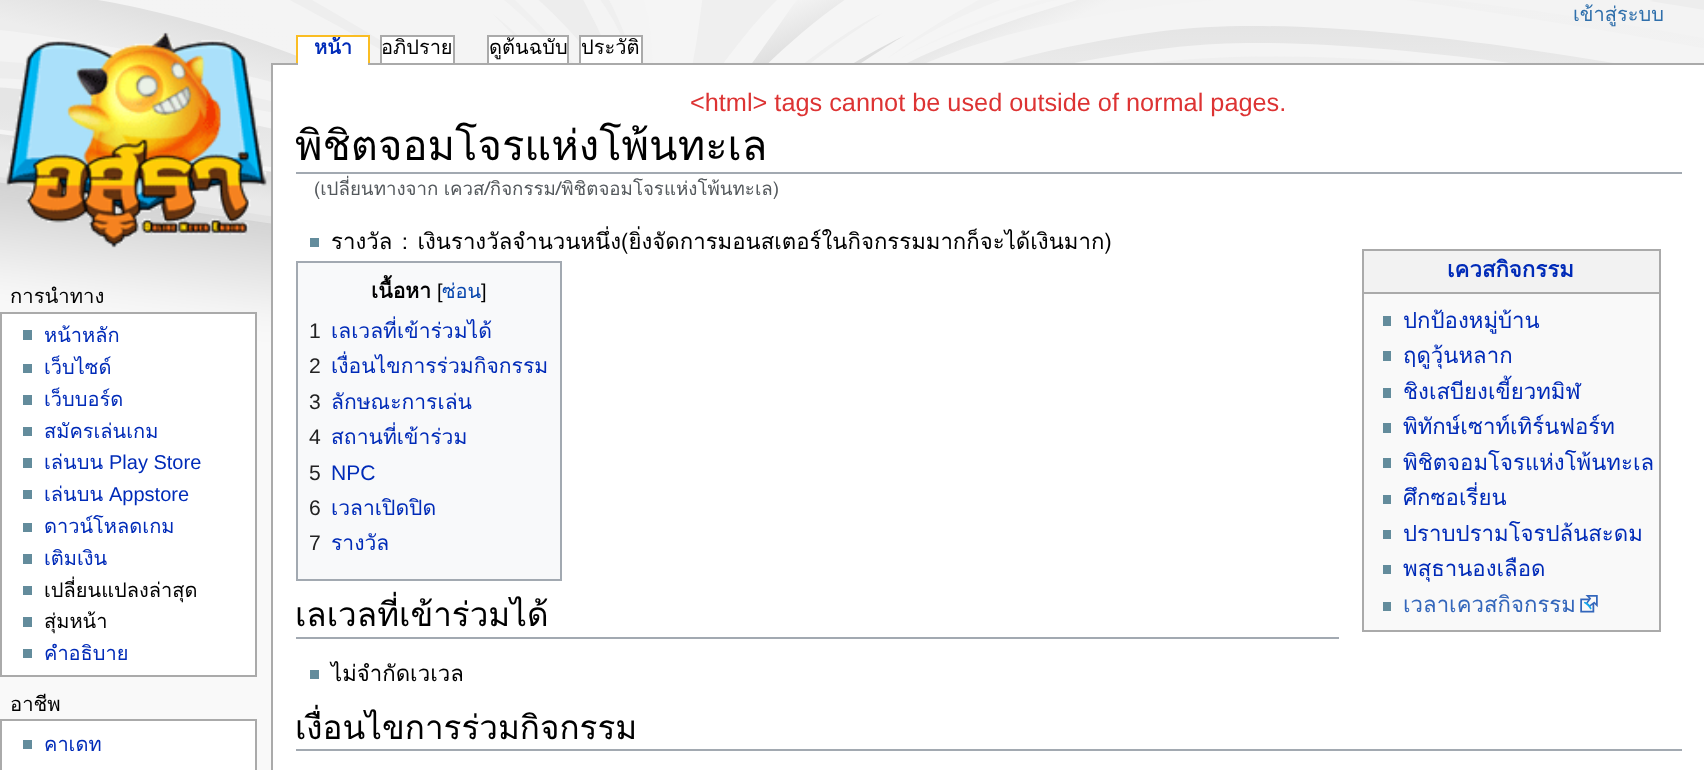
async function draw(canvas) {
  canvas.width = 1704
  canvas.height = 770
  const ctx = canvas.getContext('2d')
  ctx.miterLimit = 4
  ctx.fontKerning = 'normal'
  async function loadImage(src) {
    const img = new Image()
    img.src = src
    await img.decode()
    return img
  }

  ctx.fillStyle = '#f9f9f9'
  ctx.fillRect(0, 0, 1704, 770)
  ctx.drawImage(await loadImage('image0.png'), 0, 0, 1704, 367)
  ctx.font = '20px Loma'
  ctx.fillStyle = '#2f6fab'
  ctx.fillText('เข้าสู่ระบบ', 1573, 21)
  ctx.drawImage(await loadImage('image1.png'), 6, 32, 261, 216)
  ctx.fillStyle = '#aaa'
  ctx.fillRect(271, 63, 1433, 2)
  ctx.fillStyle = '#fff'
  ctx.fillRect(298, 37, 70, 28)
  ctx.font = 'bold 20px Loma'
  ctx.fillStyle = '#002bb8'
  ctx.fillText('หน้า', 314, 54)
  ctx.fillStyle = '#fabd23'
  ctx.fillRect(296, 35, 73, 2)
  ctx.fillRect(368, 35, 2, 28)
  ctx.fillRect(296, 35, 2, 28)
  ctx.fillStyle = '#fff'
  ctx.fillRect(382, 37, 71, 26)
  ctx.font = '20px Loma'
  ctx.fillStyle = '#000'
  ctx.fillText('อภิปราย', 381, 54)
  ctx.fillStyle = '#aaa'
  ctx.fillRect(380, 35, 75, 2)
  ctx.fillRect(453, 35, 2, 28)
  ctx.fillRect(380, 35, 2, 28)
  ctx.fillStyle = '#fff'
  ctx.fillRect(489, 37, 78, 26)
  ctx.fillStyle = '#aaa'
  ctx.fillRect(487, 35, 82, 2)
  ctx.fillRect(487, 35, 2, 28)
  ctx.fillStyle = '#000'
  ctx.fillText('ดูต้นฉบับ', 489, 54)
  ctx.fillStyle = '#aaa'
  ctx.fillRect(567, 35, 2, 28)
  ctx.fillStyle = '#fff'
  ctx.fillRect(581, 37, 60, 26)
  ctx.fillStyle = '#000'
  ctx.fillText('ประวัติ', 581, 54)
  ctx.fillStyle = '#aaa'
  ctx.fillRect(579, 35, 63, 2)
  ctx.fillRect(641, 35, 2, 28)
  ctx.fillRect(579, 35, 2, 28)
  ctx.font = '20.25px Loma'
  ctx.fillStyle = '#000'
  ctx.fillText('การนำทาง', 10, 303)
  ctx.fillStyle = '#fff'
  ctx.beginPath()
  ctx.rect(1, 313, 255, 363)
  ctx.fill()
  ctx.strokeStyle = '#aaa'
  ctx.lineWidth = 2
  ctx.stroke()
  ctx.fillStyle = '#638c9c'
  ctx.fillRect(23, 330, 9, 10)
  ctx.font = '20px Loma'
  ctx.fillStyle = '#002bb8'
  ctx.fillText('หน้าหลัก', 44, 342)
  ctx.fillStyle = '#638c9c'
  ctx.fillRect(23, 364, 9, 9)
  ctx.fillStyle = '#002bb8'
  ctx.fillText('เว็บไซด์', 44, 374)
  ctx.fillStyle = '#638c9c'
  ctx.fillRect(23, 395, 9, 10)
  ctx.fillStyle = '#002bb8'
  ctx.fillText('เว็บบอร์ด', 44, 406)
  ctx.fillStyle = '#638c9c'
  ctx.fillRect(23, 427, 9, 9)
  ctx.fillStyle = '#002bb8'
  ctx.fillText('สมัครเล่นเกม', 44, 438)
  ctx.fillStyle = '#638c9c'
  ctx.fillRect(23, 458, 9, 10)
  ctx.fillStyle = '#002bb8'
  ctx.fillText('เล่นบน', 44, 469)
  ctx.font = '20px Liberation Sans'
  ctx.fillText('Play Store', 109, 469)
  ctx.fillStyle = '#638c9c'
  ctx.fillRect(23, 490, 9, 9)
  ctx.font = '20px Loma'
  ctx.fillStyle = '#002bb8'
  ctx.fillText('เล่นบน', 44, 501)
  ctx.font = '20px Liberation Sans'
  ctx.fillText('Appstore', 109, 501)
  ctx.fillStyle = '#638c9c'
  ctx.fillRect(23, 523, 9, 9)
  ctx.font = '20px Loma'
  ctx.fillStyle = '#002bb8'
  ctx.fillText('ดาวน์โหลดเกม', 44, 533)
  ctx.fillStyle = '#638c9c'
  ctx.fillRect(23, 554, 9, 10)
  ctx.fillStyle = '#002bb8'
  ctx.fillText('เติมเงิน', 44, 565)
  ctx.fillStyle = '#638c9c'
  ctx.fillRect(23, 586, 9, 9)
  ctx.fillStyle = '#000'
  ctx.fillText('เปลี่ยนแปลงล่าสุด', 44, 597)
  ctx.fillStyle = '#638c9c'
  ctx.fillRect(23, 617, 9, 10)
  ctx.fillStyle = '#000'
  ctx.fillText('สุ่มหน้า', 44, 628)
  ctx.fillStyle = '#638c9c'
  ctx.fillRect(23, 649, 9, 9)
  ctx.fillStyle = '#002bb8'
  ctx.fillText('คำอธิบาย', 44, 660)
  ctx.font = '20.25px Loma'
  ctx.fillStyle = '#000'
  ctx.fillText('อาชีพ', 10, 711)
  ctx.fillStyle = '#fff'
  ctx.beginPath()
  ctx.rect(1, 720, 255, 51)
  ctx.fill()
  ctx.stroke()
  ctx.fillStyle = '#638c9c'
  ctx.fillRect(23, 740, 9, 9)
  ctx.font = '20px Loma'
  ctx.fillStyle = '#002bb8'
  ctx.fillText('คาเดท', 44, 751)
  ctx.fillStyle = '#fff'
  ctx.fillRect(273, 65, 1431, 705)
  ctx.fillStyle = '#aaa'
  ctx.fillRect(271, 63, 2, 707)
  ctx.font = '25.3px Liberation Sans'
  ctx.fillStyle = '#d33'
  ctx.fillText('<html> tags cannot be used outside of normal pages.', 690, 111)
  ctx.fillStyle = '#a2a9b1'
  ctx.fillRect(296, 172, 1386, 2)
  ctx.font = '41.75px Loma'
  ctx.fillStyle = '#000'
  ctx.fillText('พิชิตจอมโจรแห่งโพ้นทะเล', 295, 160)
  ctx.wordSpacing = '-1px'
  ctx.font = '18.7px Loma'
  ctx.fillStyle = '#54595d'
  ctx.fillText('(เปลี่ยนทางจาก เควส/กิจกรรม/พิชิตจอมโจรแห่งโพ้นทะเล)', 314, 195)
  ctx.fillStyle = '#638c9c'
  ctx.fillRect(310, 238, 9, 9)
  ctx.wordSpacing = '2px'
  ctx.font = '22.2px Loma'
  ctx.fillStyle = '#000'
  ctx.fillText('รางวัล : เงินรางวัลจำนวนหนึ่ง(ยิ่งจัดการมอนสเตอร์ในกิจกรรมมากก็จะได้เงินมาก)', 331, 249)
  ctx.fillStyle = '#f8f9fa'
  ctx.beginPath()
  ctx.rect(297, 262, 264, 318)
  ctx.fill()
  ctx.strokeStyle = '#a2a9b1'
  ctx.stroke()
  ctx.wordSpacing = '0px'
  ctx.font = 'bold 21.1px Loma'
  ctx.fillStyle = '#000'
  ctx.fillText('เนื้อหา', 371, 298)
  ctx.font = '20px Liberation Sans'
  ctx.fillText('[', 437, 298)
  ctx.font = '20px Loma'
  ctx.fillStyle = '#0645ad'
  ctx.fillText('ซ่อน', 442, 298)
  ctx.font = '20px Liberation Sans'
  ctx.fillStyle = '#000'
  ctx.fillText(']', 481, 298)
  ctx.font = '21.1px Liberation Sans'
  ctx.fillStyle = '#222'
  ctx.fillText('1', 309, 338)
  ctx.font = '21.1px Loma'
  ctx.fillStyle = '#002bb8'
  ctx.fillText('เลเวลที่เข้าร่วมได้', 331, 338)
  ctx.font = '21.1px Liberation Sans'
  ctx.fillStyle = '#222'
  ctx.fillText('2', 309, 373)
  ctx.font = '21.1px Loma'
  ctx.fillStyle = '#002bb8'
  ctx.fillText('เงื่อนไขการร่วมกิจกรรม', 331, 373)
  ctx.font = '21.1px Liberation Sans'
  ctx.fillStyle = '#222'
  ctx.fillText('3', 309, 409)
  ctx.font = '21.1px Loma'
  ctx.fillStyle = '#002bb8'
  ctx.fillText('ลักษณะการเล่น', 331, 409)
  ctx.font = '21.1px Liberation Sans'
  ctx.fillStyle = '#222'
  ctx.fillText('4', 309, 444)
  ctx.font = '21.1px Loma'
  ctx.fillStyle = '#002bb8'
  ctx.fillText('สถานที่เข้าร่วม', 331, 444)
  ctx.font = '21.1px Liberation Sans'
  ctx.fillStyle = '#222'
  ctx.fillText('5', 309, 480)
  ctx.fillStyle = '#002bb8'
  ctx.fillText('NPC', 331, 480)
  ctx.fillStyle = '#222'
  ctx.fillText('6', 309, 515)
  ctx.font = '21.1px Loma'
  ctx.fillStyle = '#002bb8'
  ctx.fillText('เวลาเปิดปิด', 331, 515)
  ctx.font = '21.1px Liberation Sans'
  ctx.fillStyle = '#222'
  ctx.fillText('7', 309, 550)
  ctx.font = '21.1px Loma'
  ctx.fillStyle = '#002bb8'
  ctx.fillText('รางวัล', 331, 550)
  ctx.fillStyle = '#f9f9f9'
  ctx.fillRect(1364, 294, 295, 336)
  ctx.fillStyle = '#aaa'
  ctx.fillRect(1362, 249, 299, 2)
  ctx.fillRect(1659, 249, 2, 383)
  ctx.fillRect(1362, 630, 299, 2)
  ctx.fillRect(1362, 249, 2, 383)
  ctx.fillStyle = '#f2f2f2'
  ctx.fillRect(1364, 251, 295, 41)
  ctx.font = 'bold 22.2px Loma'
  ctx.fillStyle = '#002bb8'
  ctx.fillText('เควสกิจกรรม', 1447, 277)
  ctx.fillStyle = '#aaa'
  ctx.fillRect(1362, 292, 299, 2)
  ctx.fillStyle = '#638c9c'
  ctx.fillRect(1383, 316, 8, 10)
  ctx.font = '22.2px Loma'
  ctx.fillStyle = '#002bb8'
  ctx.fillText('ปกป้องหมู่บ้าน', 1403, 328)
  ctx.fillStyle = '#638c9c'
  ctx.fillRect(1383, 351, 8, 10)
  ctx.fillStyle = '#002bb8'
  ctx.fillText('ฤดูวุ้นหลาก', 1403, 363)
  ctx.fillStyle = '#638c9c'
  ctx.fillRect(1383, 388, 8, 10)
  ctx.fillStyle = '#002bb8'
  ctx.fillText('ชิงเสบียงเขี้ยวทมิฬ', 1403, 399)
  ctx.fillStyle = '#638c9c'
  ctx.fillRect(1383, 423, 8, 10)
  ctx.fillStyle = '#002bb8'
  ctx.fillText('พิทักษ์เซาท์เทิร์นฟอร์ท', 1403, 434)
  ctx.fillStyle = '#638c9c'
  ctx.fillRect(1383, 458, 8, 10)
  ctx.fillStyle = '#002bb8'
  ctx.fillText('พิชิตจอมโจรแห่งโพ้นทะเล', 1403, 470)
  ctx.fillStyle = '#638c9c'
  ctx.fillRect(1383, 495, 8, 9)
  ctx.fillStyle = '#002bb8'
  ctx.fillText('ศึกซอเรี่ยน', 1403, 505)
  ctx.fillStyle = '#638c9c'
  ctx.fillRect(1383, 530, 8, 9)
  ctx.fillStyle = '#002bb8'
  ctx.fillText('ปราบปรามโจรปล้นสะดม', 1403, 541)
  ctx.fillStyle = '#638c9c'
  ctx.fillRect(1383, 565, 8, 9)
  ctx.fillStyle = '#002bb8'
  ctx.fillText('พสุธานองเลือด', 1403, 576)
  ctx.fillStyle = '#638c9c'
  ctx.fillRect(1383, 602, 8, 9)
  ctx.fillStyle = '#36b'
  ctx.fillText('เวลาเควสกิจกรรม', 1403, 612)
  ctx.drawImage(await loadImage('image2.png'), 1580, 595, 18, 18)
  ctx.fillStyle = '#a2a9b1'
  ctx.fillRect(296, 637, 1043, 2)
  ctx.font = '33.25px Loma'
  ctx.fillStyle = '#000'
  ctx.fillText('เลเวลที่เข้าร่วมได้', 295, 626)
  ctx.fillStyle = '#638c9c'
  ctx.fillRect(310, 670, 9, 9)
  ctx.font = '22.2px Loma'
  ctx.fillStyle = '#000'
  ctx.fillText('ไม่จำกัดเวเวล', 331, 681)
  ctx.fillStyle = '#a2a9b1'
  ctx.fillRect(296, 749, 1386, 2)
  ctx.save()
  ctx.beginPath()
  ctx.rect(296, 695, 1386, 54)
  ctx.clip()
  ctx.font = '33.25px Loma'
  ctx.fillStyle = '#000'
  ctx.fillText('เงื่อนไขการร่วมกิจกรรม', 295, 739)
  ctx.restore()
}

draw(document.querySelector('canvas'))
